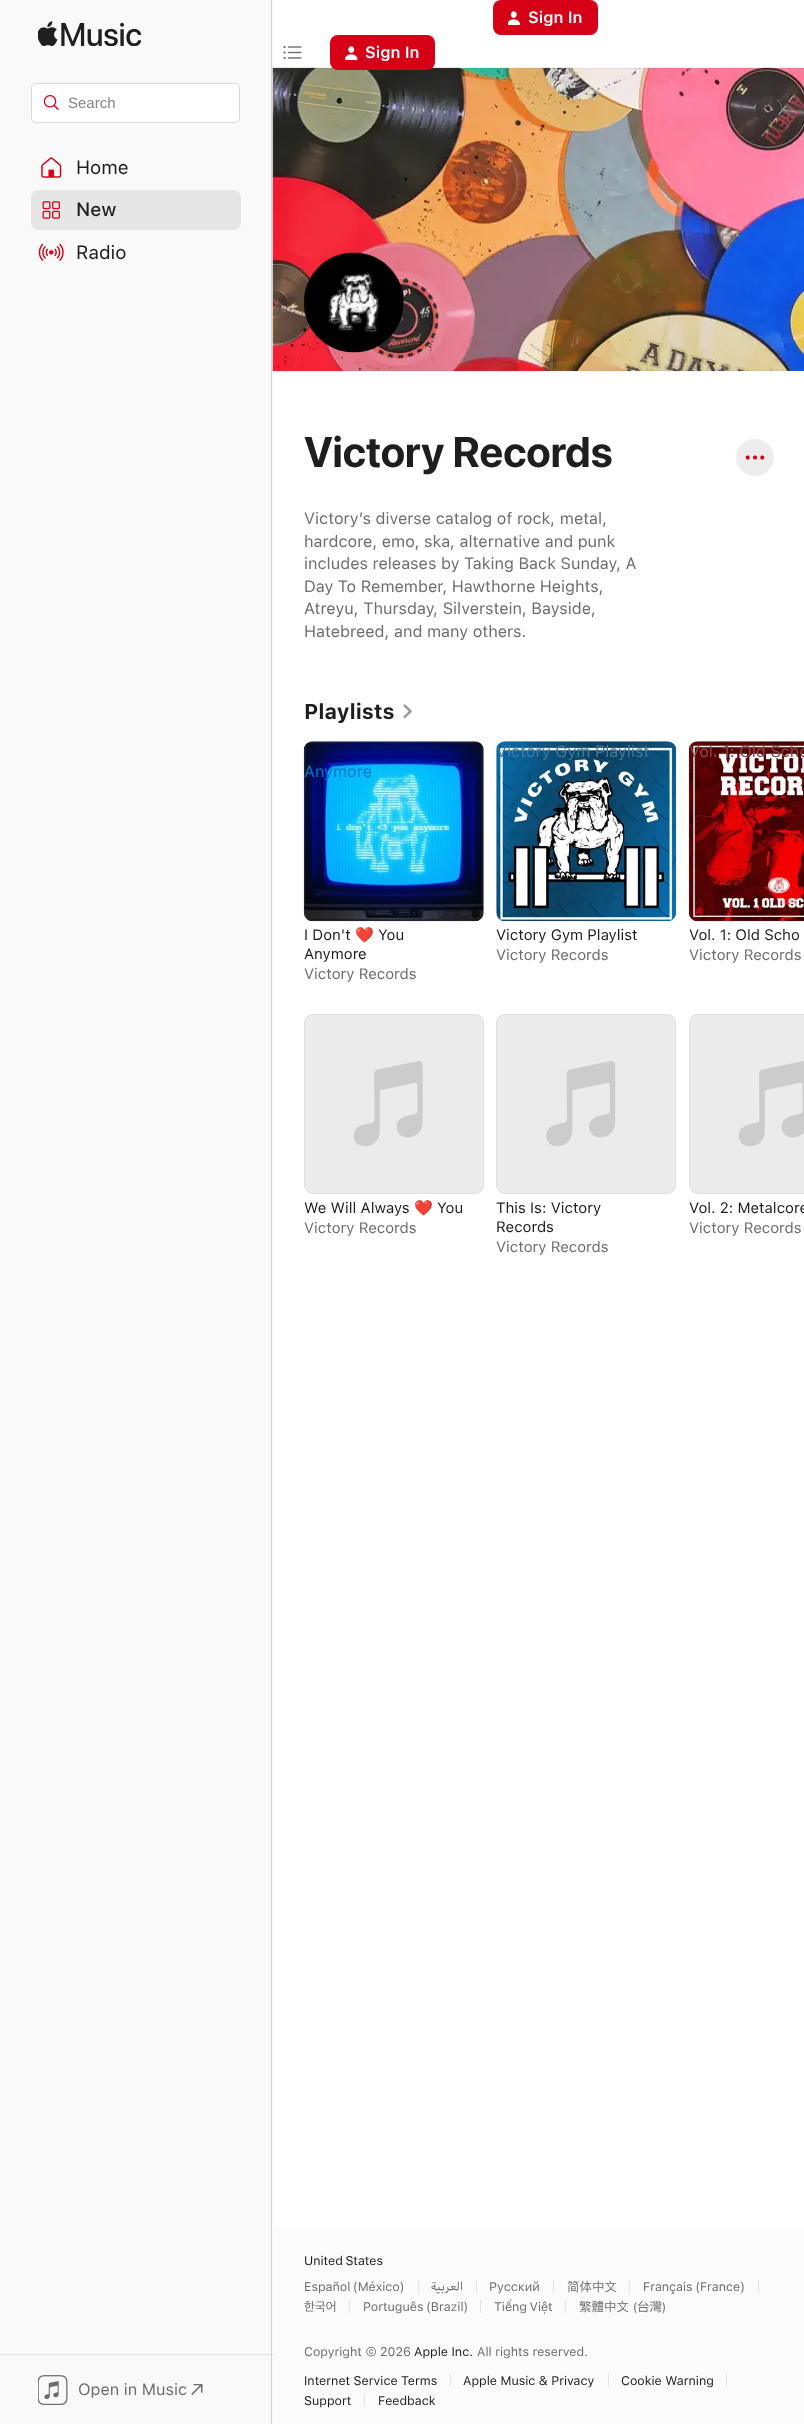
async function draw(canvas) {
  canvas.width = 804
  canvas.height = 2424
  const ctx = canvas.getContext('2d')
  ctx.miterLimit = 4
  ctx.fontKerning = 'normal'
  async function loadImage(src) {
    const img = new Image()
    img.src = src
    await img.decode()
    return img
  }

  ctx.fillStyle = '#fff'
  ctx.fillRect(0, 0, 804, 2424)
  ctx.fillStyle = '#d60017'
  ctx.beginPath()
  ctx.roundRect(493, 0, 105, 35, 8)
  ctx.fill()
  ctx.drawImage(await loadImage('image0.png'), 508, 11, 12, 14)
  ctx.font = '600 16.25px SF'
  ctx.fillStyle = '#fff'
  ctx.fillText('Sign In', 528, 23)
  ctx.drawImage(await loadImage('image1.png'), 283, 45, 19, 15)
  ctx.drawImage(await loadImage('image10.png'), 272, 67, 532, 305)
  ctx.strokeStyle = '#8080801a'
  ctx.strokeRect(273.5, 68.5, 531, 302)
  ctx.fillStyle = '#d60017'
  ctx.beginPath()
  ctx.roundRect(330, 35, 105, 35, 8)
  ctx.fill()
  ctx.drawImage(await loadImage('image2.png'), 345, 46, 13, 14)
  ctx.fillStyle = '#fff'
  ctx.fillText('Sign In', 365, 58)
  ctx.fillStyle = '#3c3c4308'
  ctx.fillRect(0, 0, 273, 2424)
  ctx.fillStyle = '#d4d4d4'
  ctx.fillRect(271, 0, 1, 2424)
  ctx.drawImage(await loadImage('image3.png'), 38, 21, 103, 25)
  ctx.fillStyle = '#fff'
  ctx.beginPath()
  ctx.roundRect(31, 83, 209, 40, 5)
  ctx.fill()
  ctx.beginPath()
  ctx.roundRect(31.5, 83.5, 208, 39, 4.5)
  ctx.strokeStyle = '#00000026'
  ctx.stroke()
  ctx.drawImage(await loadImage('image4.png'), 44, 95, 15, 15)
  ctx.font = '15px Liberation Sans'
  ctx.fillStyle = '#858585'
  ctx.fillText('Search', 68, 108)
  ctx.drawImage(await loadImage('image5.png'), 41, 157, 21, 21)
  ctx.font = '19px SF'
  ctx.fillStyle = '#1e1e1e'
  ctx.fillText('Home', 76, 174)
  ctx.fillStyle = '#e6e6e7'
  ctx.beginPath()
  ctx.roundRect(31, 190, 210, 40, 8)
  ctx.fill()
  ctx.drawImage(await loadImage('image6.png'), 42, 201, 18, 18)
  ctx.font = '500 19px SF'
  ctx.fillStyle = '#1e1e1e'
  ctx.fillText('New', 76, 216)
  ctx.drawImage(await loadImage('image7.png'), 38, 243, 26, 18)
  ctx.font = '19px SF'
  ctx.fillText('Radio', 76, 259)
  ctx.fillStyle = '#0000001a'
  ctx.fillRect(0, 2354, 273, 1)
  ctx.drawImage(await loadImage('image8.png'), 38, 2375, 30, 30)
  ctx.font = '16.25px SF'
  ctx.fillStyle = '#6e6e6e'
  ctx.fillText('Open in Music', 78, 2395)
  ctx.drawImage(await loadImage('image9.png'), 191, 2384, 12, 11)
  ctx.drawImage(await loadImage('image11.png'), 303, 252, 101, 101)
  ctx.beginPath()
  ctx.arc(354, 303, 49.5, 0, 2 * Math.PI)
  ctx.strokeStyle = '#8080801a'
  ctx.stroke()
  ctx.font = 'bold 42.5px SF'
  ctx.fillStyle = '#1e1e1e'
  ctx.fillText('Victory Records', 304, 467)
  ctx.fillStyle = '#fafafa'
  ctx.beginPath()
  ctx.roundRect(736, 439, 38, 37, 18.5)
  ctx.fill()
  ctx.drawImage(await loadImage('image12.png'), 736, 439, 38, 37)
  ctx.font = '16.25px SF'
  ctx.fillStyle = '#6e6e6e'
  ctx.fillText('Victory’s diverse catalog of rock, metal,', 304, 524)
  ctx.fillText('hardcore, emo, ska, alternative and punk', 304, 547)
  ctx.fillText('includes releases by Taking Back Sunday, A', 304, 569)
  ctx.fillText('Day To Remember, Hawthorne Heights,', 304, 592)
  ctx.fillText('Atreyu, Thursday, Silverstein, Bayside,', 304, 614)
  ctx.fillText('Hatebreed, and many others.', 304, 637)
  ctx.font = 'bold 21.25px "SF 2"'
  ctx.fillStyle = '#1e1e1e'
  ctx.fillText('Playlists', 304, 719)
  ctx.drawImage(await loadImage('image13.png'), 403, 704, 9, 15)
  ctx.drawImage(await loadImage('image14.png'), 303, 741, 181, 181)
  ctx.beginPath()
  ctx.roundRect(304.5, 741.5, 179, 179, 8.5)
  ctx.stroke()
  ctx.font = '16.25px SF'
  ctx.fillStyle = '#037bc6'
  ctx.fillText('Anymore', 304, 777)
  ctx.font = '15px SF'
  ctx.fillStyle = '#1e1e1e'
  ctx.fillText('I Don\'t', 304, 940)
  ctx.font = '15px Noto Color Emoji'
  ctx.fillText('❤️', 355, 940)
  ctx.font = '15px SF'
  ctx.fillText('You', 378, 940)
  ctx.fillText('Anymore', 304, 959)
  ctx.fillStyle = '#6e6e6e'
  ctx.fillText('Victory Records', 304, 979)
  ctx.drawImage(await loadImage('image15.png'), 496, 741, 181, 181)
  ctx.beginPath()
  ctx.roundRect(496.5, 741.5, 179, 179, 8.5)
  ctx.stroke()
  ctx.font = '16.25px SF'
  ctx.fillStyle = '#437898'
  ctx.fillText('Victory Gym Playlist', 496, 757)
  ctx.font = '15px SF'
  ctx.fillStyle = '#1e1e1e'
  ctx.fillText('Victory Gym Playlist', 496, 940)
  ctx.fillStyle = '#6e6e6e'
  ctx.fillText('Victory Records', 496, 960)
  ctx.drawImage(await loadImage('image16.png'), 688, 741, 116, 181)
  ctx.beginPath()
  ctx.roundRect(689.5, 741.5, 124, 179, 8.5)
  ctx.stroke()
  ctx.font = '16.25px SF'
  ctx.fillStyle = '#844a4b'
  ctx.fillText('Vol. 1: Old Scho', 689, 757)
  ctx.font = '15px SF'
  ctx.fillStyle = '#1e1e1e'
  ctx.fillText('Vol. 1: Old Scho', 689, 940)
  ctx.fillStyle = '#6e6e6e'
  ctx.fillText('Victory Records', 689, 960)
  ctx.fillStyle = '#ebebeb'
  ctx.beginPath()
  ctx.roundRect(304, 1014, 180, 180, 9)
  ctx.fill()
  ctx.drawImage(await loadImage('image17.png'), 304, 1014, 180, 174)
  ctx.beginPath()
  ctx.roundRect(304.5, 1014.5, 179, 179, 8.5)
  ctx.stroke()
  ctx.fillStyle = '#1e1e1e'
  ctx.fillText('We Will Always', 304, 1213)
  ctx.font = '15px Noto Color Emoji'
  ctx.fillText('❤️', 414, 1213)
  ctx.font = '15px SF'
  ctx.fillText('You', 437, 1213)
  ctx.fillStyle = '#6e6e6e'
  ctx.fillText('Victory Records', 304, 1233)
  ctx.fillStyle = '#ebebeb'
  ctx.beginPath()
  ctx.roundRect(496, 1014, 180, 180, 9)
  ctx.fill()
  ctx.drawImage(await loadImage('image18.png'), 496, 1014, 180, 174)
  ctx.beginPath()
  ctx.roundRect(496.5, 1014.5, 179, 179, 8.5)
  ctx.stroke()
  ctx.fillStyle = '#1e1e1e'
  ctx.fillText('This Is: Victory', 496, 1213)
  ctx.fillText('Records', 496, 1232)
  ctx.fillStyle = '#6e6e6e'
  ctx.fillText('Victory Records', 496, 1252)
  ctx.fillStyle = '#ebebeb'
  ctx.beginPath()
  ctx.moveTo(698, 1014)
  ctx.lineTo(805, 1014)
  ctx.lineTo(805, 1194)
  ctx.lineTo(698, 1194)
  ctx.bezierCurveTo(693, 1194, 689, 1190, 689, 1185)
  ctx.lineTo(689, 1023)
  ctx.bezierCurveTo(689, 1018, 693, 1014, 698, 1014)
  ctx.closePath()
  ctx.fill()
  ctx.drawImage(await loadImage('image19.png'), 689, 1014, 115, 174)
  ctx.beginPath()
  ctx.roundRect(689.5, 1014.5, 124, 179, 8.5)
  ctx.stroke()
  ctx.fillStyle = '#1e1e1e'
  ctx.fillText('Vol. 2: Metalcore', 689, 1213)
  ctx.fillStyle = '#6e6e6e'
  ctx.fillText('Victory Records', 689, 1233)
  ctx.fillStyle = '#fbfbfb'
  ctx.fillRect(273, 2228, 531, 196)
  ctx.wordSpacing = '-1px'
  ctx.font = '12.5px SF'
  ctx.fillStyle = '#1e1e1e'
  ctx.fillText('United States', 304, 2265)
  ctx.fillStyle = '#6e6e6e'
  ctx.fillText('Español (México)', 304, 2291)
  ctx.fillStyle = '#e2e2e2'
  ctx.fillRect(418, 2280, 1, 13)
  ctx.wordSpacing = '0px'
  ctx.direction = 'rtl'
  ctx.font = '12.5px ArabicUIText'
  ctx.fillStyle = '#6e6e6e'
  ctx.fillText('العربية', 463, 2291)
  ctx.fillStyle = '#e2e2e2'
  ctx.fillRect(476, 2280, 1, 13)
  ctx.direction = 'ltr'
  ctx.font = '12.5px SF'
  ctx.fillStyle = '#6e6e6e'
  ctx.fillText('Русский', 489, 2291)
  ctx.fillStyle = '#e2e2e2'
  ctx.fillRect(553, 2280, 1, 13)
  ctx.font = '12.5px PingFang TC'
  ctx.fillStyle = '#6e6e6e'
  ctx.fillText('简体中文', 567, 2291)
  ctx.fillStyle = '#e2e2e2'
  ctx.fillRect(629, 2280, 1, 13)
  ctx.wordSpacing = '-1px'
  ctx.font = '12.5px SF'
  ctx.fillStyle = '#6e6e6e'
  ctx.fillText('Français (France)', 643, 2291)
  ctx.fillStyle = '#e2e2e2'
  ctx.fillRect(758, 2280, 1, 13)
  ctx.wordSpacing = '0px'
  ctx.font = '12.5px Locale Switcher'
  ctx.fillStyle = '#6e6e6e'
  ctx.fillText('한국어', 304, 2311)
  ctx.fillStyle = '#e2e2e2'
  ctx.fillRect(349, 2300, 1, 13)
  ctx.wordSpacing = '-1px'
  ctx.font = '12.5px SF'
  ctx.fillStyle = '#6e6e6e'
  ctx.fillText('Português (Brazil)', 363, 2311)
  ctx.fillStyle = '#e2e2e2'
  ctx.fillRect(480, 2300, 1, 13)
  ctx.fillStyle = '#6e6e6e'
  ctx.fillText('Tiếng Việt', 494, 2311)
  ctx.fillStyle = '#e2e2e2'
  ctx.fillRect(565, 2300, 1, 13)
  ctx.wordSpacing = '0px'
  ctx.font = '12.5px PingFang TC'
  ctx.fillStyle = '#6e6e6e'
  ctx.fillText('繁體中文', 579, 2311)
  ctx.font = '12.5px "SF 2"'
  ctx.fillText('(', 633, 2311)
  ctx.font = '12.5px PingFang TC'
  ctx.fillText('台灣', 637, 2311)
  ctx.font = '12.5px "SF 2"'
  ctx.fillText(')', 662, 2311)
  ctx.font = '12.5px SF'
  ctx.fillText('Copyright © 2026', 304, 2356)
  ctx.fillStyle = '#1e1e1e'
  ctx.fillText('Apple Inc.', 414, 2356)
  ctx.fillStyle = '#6e6e6e'
  ctx.fillText('All rights reserved.', 477, 2356)
  ctx.fillStyle = '#1e1e1e'
  ctx.fillText('Internet Service Terms', 304, 2385)
  ctx.fillStyle = '#e2e2e2'
  ctx.fillRect(450, 2374, 1, 12)
  ctx.fillStyle = '#1e1e1e'
  ctx.fillText('Apple Music & Privacy', 463, 2385)
  ctx.fillStyle = '#e2e2e2'
  ctx.fillRect(608, 2374, 1, 12)
  ctx.fillStyle = '#1e1e1e'
  ctx.fillText('Cookie Warning', 621, 2385)
  ctx.fillStyle = '#e2e2e2'
  ctx.fillRect(726, 2374, 1, 12)
  ctx.fillStyle = '#1e1e1e'
  ctx.fillText('Support', 304, 2405)
  ctx.fillStyle = '#e2e2e2'
  ctx.fillRect(364, 2394, 1, 12)
  ctx.fillStyle = '#1e1e1e'
  ctx.fillText('Feedback', 378, 2405)
}

draw(document.querySelector('canvas'))
